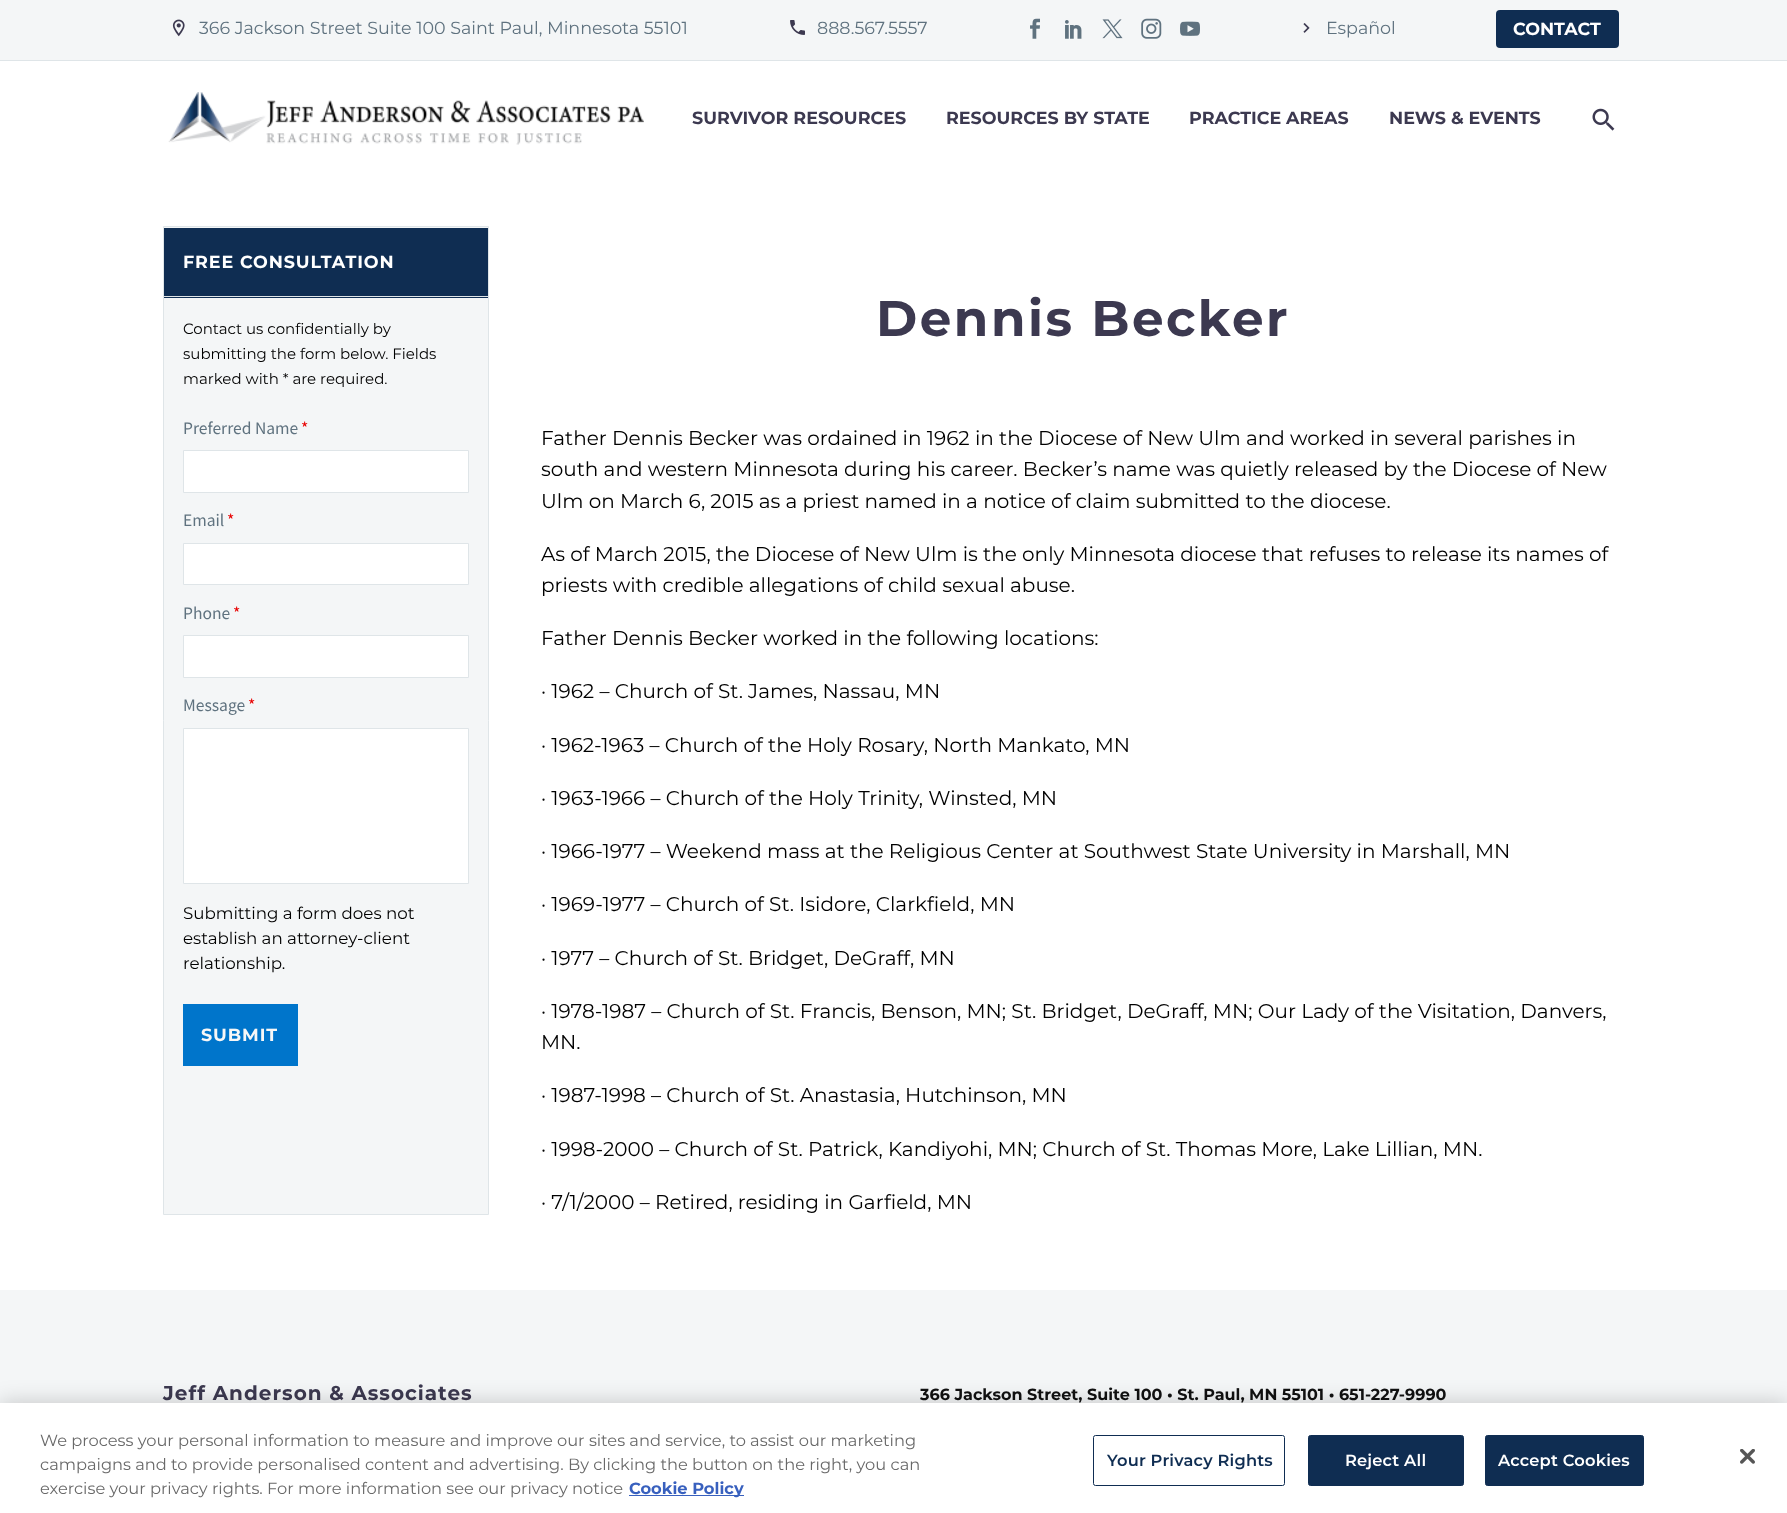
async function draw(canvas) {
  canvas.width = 1787
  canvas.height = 1513
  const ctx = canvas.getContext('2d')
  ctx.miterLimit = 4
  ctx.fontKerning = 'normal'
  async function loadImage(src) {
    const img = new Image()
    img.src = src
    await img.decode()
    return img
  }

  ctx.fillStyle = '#fff'
  ctx.fillRect(0, 0, 1787, 1513)
  ctx.fillStyle = '#f4f6f7'
  ctx.fillRect(0, 0, 1787, 60)
  ctx.fillStyle = '#dfe5e8'
  ctx.fillRect(0, 60, 1787, 1)
  ctx.drawImage(await loadImage('image0.png'), 172, 19, 7, 18)
  ctx.drawImage(await loadImage('image1.png'), 179, 19, 6, 17)
  ctx.font = '17.5px Montserrat'
  ctx.fillStyle = '#5f727f'
  ctx.fillText('366 Jackson Street Suite 100 Saint Paul, Minnesota 55101', 199, 34)
  ctx.drawImage(await loadImage('image2.png'), 790, 20, 8, 14)
  ctx.drawImage(await loadImage('image3.png'), 798, 30, 7, 5)
  ctx.fillText('888.567.5557', 817, 34)
  ctx.drawImage(await loadImage('image4.png'), 1030, 18, 10, 21)
  ctx.drawImage(await loadImage('image5.png'), 1065, 20, 17, 19)
  ctx.drawImage(await loadImage('image6.png'), 1102, 19, 21, 20)
  ctx.drawImage(await loadImage('image7.png'), 1141, 18, 21, 21)
  ctx.drawImage(await loadImage('image8.png'), 1180, 21, 20, 15)
  ctx.drawImage(await loadImage('image9.png'), 1303, 23, 3, 10)
  ctx.drawImage(await loadImage('image10.png'), 1306, 24, 4, 8)
  ctx.fillText('Español', 1326, 34)
  ctx.fillStyle = '#0f2d52'
  ctx.beginPath()
  ctx.roundRect(1496, 10, 123, 38, 4)
  ctx.fill()
  ctx.font = 'bold 17.5px Montserrat'
  ctx.fillStyle = '#fff'
  ctx.fillText('CONTACT', 1513, 35)
  ctx.drawImage(await loadImage('image11.png'), 168, 92, 476, 53)
  ctx.fillStyle = '#3c3950'
  ctx.fillText('SURVIVOR RESOURCES', 692, 124)
  ctx.fillText('RESOURCES BY STATE', 946, 124)
  ctx.fillText('PRACTICE AREAS', 1189, 124)
  ctx.fillText('NEWS & EVENTS', 1389, 124)
  ctx.drawImage(await loadImage('image12.png'), 1592, 108, 23, 23)
  ctx.fillStyle = '#f4f6f7'
  ctx.beginPath()
  ctx.rect(163.5, 226.5, 325, 988)
  ctx.fill()
  ctx.strokeStyle = '#dfe5e8'
  ctx.stroke()
  ctx.fillStyle = '#0f2d52'
  ctx.fillRect(164, 228, 324, 70)
  ctx.fillStyle = '#dfe5e8'
  ctx.fillRect(164, 296, 324, 1)
  ctx.letterSpacing = '0.9px'
  ctx.fillStyle = '#fff'
  ctx.fillText('FREE CONSULTATION', 183, 268)
  ctx.letterSpacing = '0px'
  ctx.font = '15px Montserrat'
  ctx.fillStyle = '#000'
  ctx.fillText('Contact us confidentially by', 183, 334)
  ctx.fillText('submitting the form below. Fields', 183, 359)
  ctx.fillText('marked with * are required.', 183, 384)
  ctx.font = '17.5px Source Sans Pro'
  ctx.fillStyle = '#5f727f'
  ctx.fillText('Preferred Name', 183, 434)
  ctx.fillStyle = '#e80000'
  ctx.fillText('*', 301, 434)
  ctx.fillStyle = '#fff'
  ctx.beginPath()
  ctx.rect(183.5, 450.5, 285, 42)
  ctx.fill()
  ctx.stroke()
  ctx.fillStyle = '#5f727f'
  ctx.fillText('Email', 183, 526)
  ctx.fillStyle = '#e80000'
  ctx.fillText('*', 227, 526)
  ctx.fillStyle = '#fff'
  ctx.beginPath()
  ctx.rect(183.5, 543.5, 285, 41)
  ctx.fill()
  ctx.stroke()
  ctx.fillStyle = '#5f727f'
  ctx.fillText('Phone', 183, 619)
  ctx.fillStyle = '#e80000'
  ctx.fillText('*', 233, 619)
  ctx.fillStyle = '#fff'
  ctx.beginPath()
  ctx.rect(183.5, 635.5, 285, 42)
  ctx.fill()
  ctx.stroke()
  ctx.fillStyle = '#5f727f'
  ctx.fillText('Message', 183, 711)
  ctx.fillStyle = '#e80000'
  ctx.fillText('*', 248, 711)
  ctx.fillStyle = '#fff'
  ctx.beginPath()
  ctx.rect(183.5, 728.5, 285, 155)
  ctx.fill()
  ctx.stroke()
  ctx.font = '16.7px Montserrat'
  ctx.fillStyle = '#000'
  ctx.fillText('Submitting a form does not', 183, 919)
  ctx.fillText('establish an attorney-client', 183, 944)
  ctx.fillText('relationship.', 183, 969)
  ctx.fillStyle = '#0075cb'
  ctx.fillRect(183, 1004, 115, 62)
  ctx.letterSpacing = '0.9px'
  ctx.font = 'bold 17.5px Montserrat'
  ctx.fillStyle = '#f7f7f7'
  ctx.fillText('SUBMIT', 201, 1041)
  ctx.letterSpacing = '2.5px'
  ctx.font = 'bold 50px Montserrat'
  ctx.fillStyle = '#3c3950'
  ctx.fillText('Dennis Becker', 876, 336)
  ctx.letterSpacing = '0px'
  ctx.font = '20px Montserrat'
  ctx.fillStyle = '#000'
  ctx.fillText('Father Dennis Becker was ordained in 1962 in the Diocese of New Ulm and worked in several parishes in', 541, 445)
  ctx.fillText('south and western Minnesota during his career. Becker’s name was quietly released by the Diocese of New', 541, 476)
  ctx.fillText('Ulm on March 6, 2015 as a priest named in a notice of claim submitted to the diocese.', 541, 508)
  ctx.fillText('As of March 2015, the Diocese of New Ulm is the only Minnesota diocese that refuses to release its names of', 541, 561)
  ctx.fillText('priests with credible allegations of child sexual abuse.', 541, 592)
  ctx.fillText('Father Dennis Becker worked in the following locations:', 541, 645)
  ctx.fillText('· 1962 – Church of St. James, Nassau, MN', 541, 698)
  ctx.fillText('· 1962-1963 – Church of the Holy Rosary, North Mankato, MN', 541, 752)
  ctx.fillText('· 1963-1966 – Church of the Holy Trinity, Winsted, MN', 541, 805)
  ctx.fillText('· 1966-1977 – Weekend mass at the Religious Center at Southwest State University in Marshall, MN', 541, 858)
  ctx.fillText('· 1969-1977 – Church of St. Isidore, Clarkfield, MN', 541, 911)
  ctx.fillText('· 1977 – Church of St. Bridget, DeGraff, MN', 541, 965)
  ctx.fillText('· 1978-1987 – Church of St. Francis, Benson, MN; St. Bridget, DeGraff, MN; Our Lady of the Visitation, Danvers,', 541, 1018)
  ctx.fillText('MN.', 541, 1049)
  ctx.fillText('· 1987-1998 – Church of St. Anastasia, Hutchinson, MN', 541, 1102)
  ctx.fillText('· 1998-2000 – Church of St. Patrick, Kandiyohi, MN; Church of St. Thomas More, Lake Lillian, MN.', 541, 1156)
  ctx.fillText('· 7/1/2000 – Retired, residing in Garfield, MN', 541, 1209)
  ctx.fillStyle = '#f4f6f7'
  ctx.fillRect(0, 1290, 1787, 113)
  ctx.letterSpacing = '1px'
  ctx.font = 'bold 20px Montserrat'
  ctx.fillStyle = '#3c3950'
  ctx.fillText('Jeff Anderson & Associates', 163, 1400)
  ctx.letterSpacing = '0px'
  ctx.font = 'bold 16px Montserrat'
  ctx.fillStyle = '#111'
  ctx.fillText('366 Jackson Street, Suite 100 • St. Paul, MN 55101 • 651-227-9990', 920, 1400)
  ctx.fillStyle = '#00000033'
  ctx.filter = 'blur(11px)'
  ctx.beginPath()
  ctx.rect(0, 1403, 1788, 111)
  ctx.fill()
  ctx.filter = 'none'
  ctx.fillStyle = '#fff'
  ctx.fillRect(0, 1403, 1787, 110)
  ctx.font = '16.25px Montserrat'
  ctx.fillStyle = '#696969'
  ctx.fillText('We process your personal information to measure and improve our sites and service, to assist our marketing', 40, 1446)
  ctx.fillText('campaigns and to provide personalised content and advertising. By clicking the button on the right, you can', 40, 1470)
  ctx.fillText('exercise your privacy rights. For more information see our privacy notice', 40, 1494)
  ctx.fillStyle = '#3860be'
  ctx.fillRect(629, 1495, 115, 1)
  ctx.font = 'bold 16.25px Montserrat'
  ctx.fillText('Cookie Policy', 629, 1494)
  ctx.beginPath()
  ctx.roundRect(1093.5, 1435.5, 191, 50, 2)
  ctx.strokeStyle = '#0f2d52'
  ctx.stroke()
  ctx.letterSpacing = '0.2px'
  ctx.font = '600 16.25px Montserrat'
  ctx.fillStyle = '#0f2d52'
  ctx.fillText('Your Privacy Rights', 1107, 1466)
  ctx.beginPath()
  ctx.roundRect(1308.5, 1435.5, 155, 50, 2)
  ctx.fill()
  ctx.stroke()
  ctx.fillStyle = '#fff'
  ctx.fillText('Reject All', 1345, 1466)
  ctx.fillStyle = '#0f2d52'
  ctx.beginPath()
  ctx.roundRect(1485.5, 1435.5, 158, 50, 2)
  ctx.fill()
  ctx.stroke()
  ctx.fillStyle = '#fff'
  ctx.fillText('Accept Cookies', 1498, 1466)
  ctx.drawImage(await loadImage('image13.png'), 1740, 1449, 15, 15)
}

draw(document.querySelector('canvas'))
